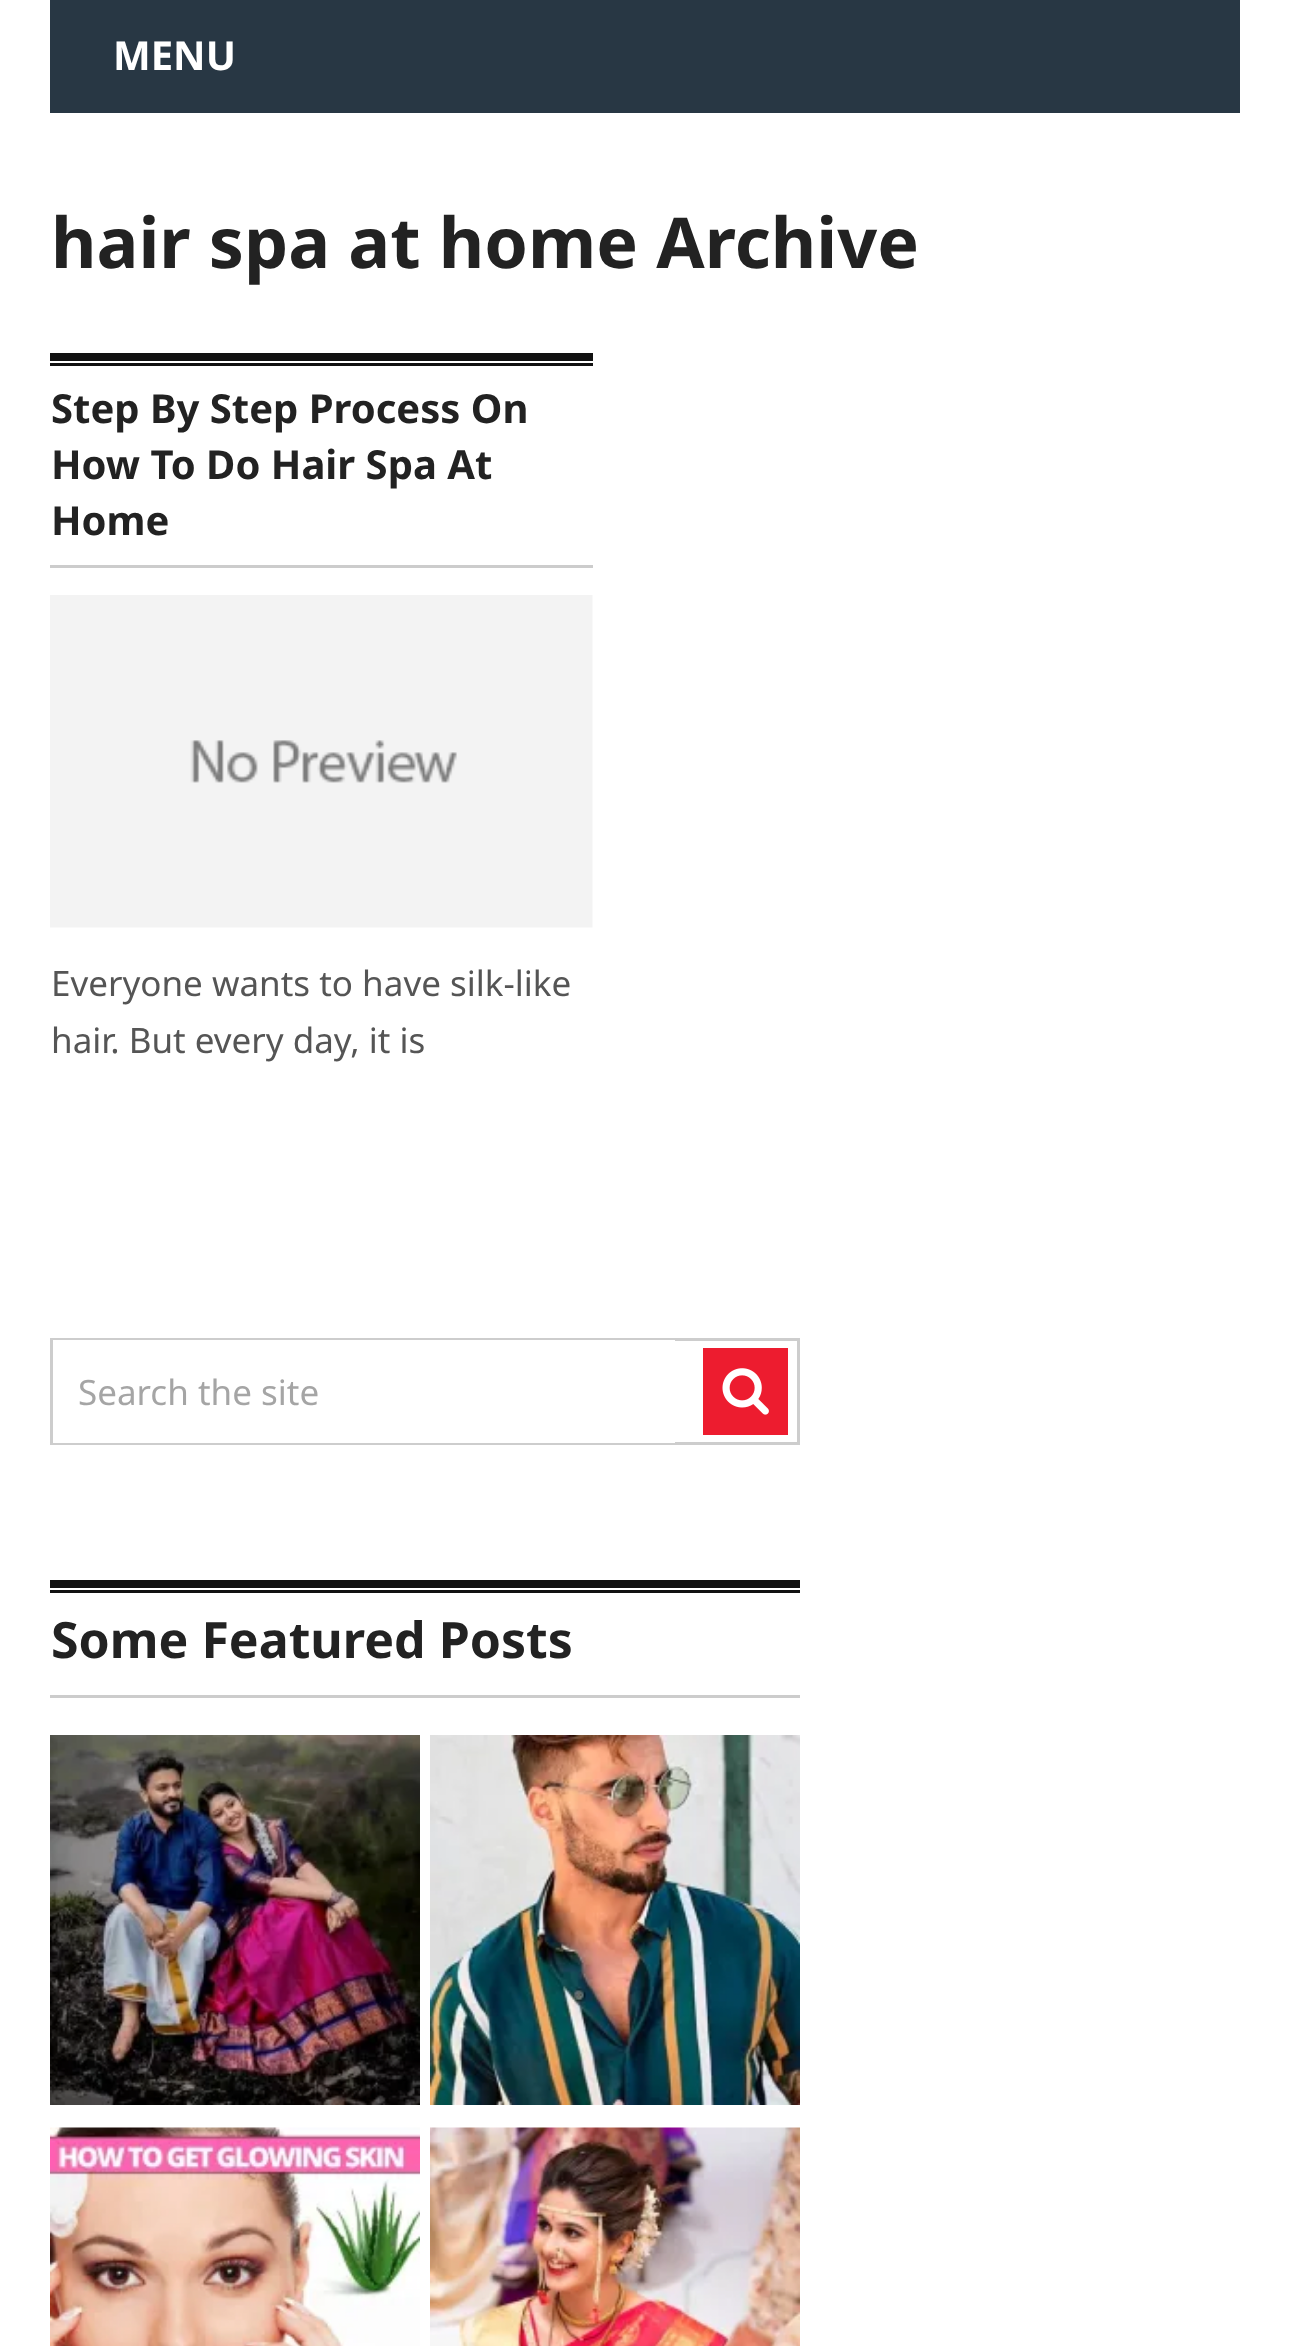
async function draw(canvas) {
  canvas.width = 1290
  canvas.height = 2346
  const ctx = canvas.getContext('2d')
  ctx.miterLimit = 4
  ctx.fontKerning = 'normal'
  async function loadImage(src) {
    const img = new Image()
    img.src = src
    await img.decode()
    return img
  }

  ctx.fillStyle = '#fff'
  ctx.fillRect(0, 0, 1290, 2346)
  ctx.fillStyle = '#283744'
  ctx.fillRect(50, 0, 1190, 113)
  ctx.font = 'bold 40px Noto Sans'
  ctx.fillStyle = '#fff'
  ctx.fillText('MENU', 113, 70)
  ctx.font = 'bold 70px Noto Sans'
  ctx.fillStyle = '#222'
  ctx.fillText('hair spa at home Archive', 51, 268)
  ctx.fillStyle = '#111'
  ctx.fillRect(50, 353, 543, 8)
  ctx.fillRect(50, 363, 543, 3)
  ctx.fillStyle = '#ccc'
  ctx.fillRect(50, 565, 543, 3)
  ctx.font = 'bold 40px Noto Sans'
  ctx.fillStyle = '#222'
  ctx.fillText('Step By Step Process On', 51, 423)
  ctx.fillText('How To Do Hair Spa At', 51, 479)
  ctx.fillText('Home', 51, 535)
  ctx.drawImage(await loadImage('image0.png'), 50, 595, 543, 333)
  ctx.font = '35px Noto Sans'
  ctx.fillStyle = '#555'
  ctx.fillText('Everyone wants to have silk-like', 51, 996)
  ctx.fillText('hair. But every day, it is', 51, 1053)
  ctx.strokeStyle = '#cdcdcd'
  ctx.lineWidth = 3
  ctx.strokeRect(51.5, 1339.5, 747, 104)
  ctx.fillStyle = '#fff'
  ctx.fillRect(53, 1340, 622, 103)
  ctx.fillStyle = '#a5a5a5'
  ctx.fillText('Search the site', 78, 1405)
  ctx.fillStyle = '#ed1c2f'
  ctx.fillRect(703, 1348, 85, 87)
  ctx.drawImage(await loadImage('image1.png'), 722, 1368, 47, 47)
  ctx.fillStyle = '#111'
  ctx.fillRect(50, 1580, 750, 8)
  ctx.fillRect(50, 1590, 750, 3)
  ctx.fillStyle = '#ccc'
  ctx.fillRect(50, 1695, 750, 3)
  ctx.font = 'bold 50px Noto Sans'
  ctx.fillStyle = '#222'
  ctx.fillText('Some Featured Posts', 51, 1658)
  ctx.drawImage(await loadImage('image2.png'), 50, 1735, 370, 370)
  ctx.drawImage(await loadImage('image3.png'), 430, 1735, 370, 370)
  ctx.drawImage(await loadImage('image4.png'), 50, 2127, 370, 219)
  ctx.drawImage(await loadImage('image5.png'), 430, 2127, 370, 219)
}

draw(document.querySelector('canvas'))
